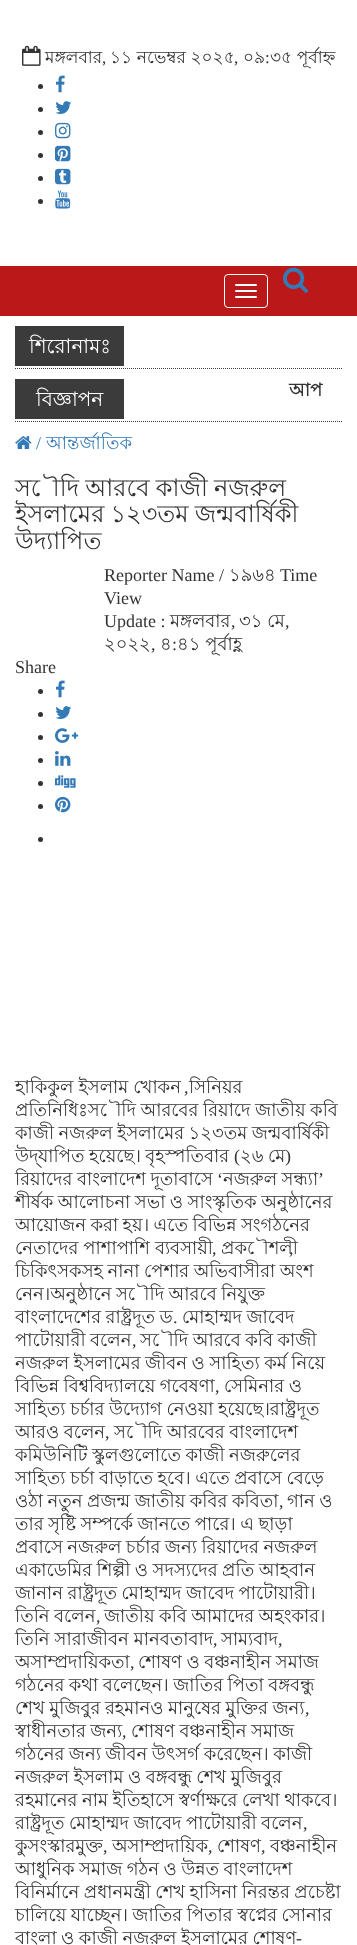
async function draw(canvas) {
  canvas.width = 357
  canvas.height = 1945
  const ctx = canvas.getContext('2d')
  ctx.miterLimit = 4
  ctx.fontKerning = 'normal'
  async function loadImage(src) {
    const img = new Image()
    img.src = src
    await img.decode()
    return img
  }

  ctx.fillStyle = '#fff'
  ctx.fillRect(0, 0, 357, 1945)
  ctx.drawImage(await loadImage('image0.png'), 22, 45, 19, 21)
  ctx.font = '17px Lohit Bengali'
  ctx.fillStyle = '#333'
  ctx.fillText('মঙ্গলবার', 45, 63)
  ctx.font = '17px Liberation Serif'
  ctx.fillText(',', 102, 63)
  ctx.font = '17px Lohit Bengali'
  ctx.fillText('১১ নভেম্বর ২০২৫', 110, 63)
  ctx.font = '17px Liberation Serif'
  ctx.fillText(',', 234, 63)
  ctx.font = '17px Lohit Bengali'
  ctx.fillText('০৯', 243, 63)
  ctx.font = '17px Liberation Serif'
  ctx.fillText(':', 265, 63)
  ctx.font = '17px Lohit Bengali'
  ctx.fillText('৩৫ পূর্বাহ্ন', 270, 63)
  ctx.beginPath()
  ctx.arc(40.5, 86.5, 2.5, 0, 2 * Math.PI)
  ctx.fill()
  ctx.drawImage(await loadImage('image1.png'), 55, 75, 10, 18)
  ctx.beginPath()
  ctx.arc(40.5, 109.5, 2.5, 0, 2 * Math.PI)
  ctx.fill()
  ctx.drawImage(await loadImage('image2.png'), 55, 101, 17, 13)
  ctx.beginPath()
  ctx.arc(40.5, 132.5, 2.5, 0, 2 * Math.PI)
  ctx.fill()
  ctx.drawImage(await loadImage('image3.png'), 55, 122, 16, 17)
  ctx.beginPath()
  ctx.arc(40.5, 155.5, 2.5, 0, 2 * Math.PI)
  ctx.fill()
  ctx.drawImage(await loadImage('image4.png'), 55, 145, 16, 17)
  ctx.beginPath()
  ctx.arc(40.5, 178.5, 2.5, 0, 2 * Math.PI)
  ctx.fill()
  ctx.drawImage(await loadImage('image5.png'), 55, 168, 16, 17)
  ctx.beginPath()
  ctx.arc(40.5, 201.5, 2.5, 0, 2 * Math.PI)
  ctx.fill()
  ctx.drawImage(await loadImage('image6.png'), 55, 190, 16, 19)
  ctx.fillStyle = '#bb1919'
  ctx.fillRect(0, 266, 357, 50)
  ctx.beginPath()
  ctx.roundRect(224.5, 274.5, 43, 33, 3.5)
  ctx.strokeStyle = '#fff'
  ctx.stroke()
  ctx.fillStyle = '#fff'
  ctx.beginPath()
  ctx.roundRect(235, 284, 22, 2, 1)
  ctx.fill()
  ctx.beginPath()
  ctx.roundRect(235, 290, 22, 2, 1)
  ctx.fill()
  ctx.beginPath()
  ctx.roundRect(235, 296, 22, 2, 1)
  ctx.fill()
  ctx.drawImage(await loadImage('image7.png'), 283, 267, 25, 26)
  ctx.beginPath()
  ctx.moveTo(15, 368.5)
  ctx.lineTo(342, 368.5)
  ctx.strokeStyle = '#3b3b3b'
  ctx.setLineDash([1, 1])
  ctx.stroke()
  ctx.fillStyle = '#3b3b3b'
  ctx.fillRect(15, 326, 109, 40)
  ctx.font = '20px Lohit Bengali'
  ctx.fillStyle = '#fff'
  ctx.fillText('শিরোনামঃ', 29, 353)
  ctx.beginPath()
  ctx.moveTo(15, 421.5)
  ctx.lineTo(342, 421.5)
  ctx.stroke()
  ctx.fillStyle = '#3b3b3b'
  ctx.fillRect(15, 379, 109, 40)
  ctx.fillStyle = '#fff'
  ctx.fillText('বিজ্ঞাপন', 36, 406)
  ctx.font = 'bold 18px Lohit Bengali'
  ctx.fillStyle = '#333'
  ctx.fillText('আপ', 289, 396)
  ctx.drawImage(await loadImage('image8.png'), 15, 436, 17, 13)
  ctx.font = '18px Liberation Serif'
  ctx.fillStyle = '#337ab7'
  ctx.fillText('/', 36, 449)
  ctx.font = '18px Lohit Bengali'
  ctx.fillText('আন্তর্জাতিক', 46, 449)
  ctx.wordSpacing = '-0.5px'
  ctx.font = '24px Lohit Bengali'
  ctx.fillStyle = '#333'
  ctx.fillText('সৌদি আরবে কাজী নজরুল', 15, 496)
  ctx.fillText('ইসলামের ১২৩তম জন্মবার্ষিকী', 15, 522)
  ctx.wordSpacing = '0px'
  ctx.fillText('উদ্যাপিত', 15, 549)
  ctx.font = '18px Liberation Serif'
  ctx.fillText('Reporter Name /', 104, 581)
  ctx.font = '18px Lohit Bengali'
  ctx.fillText('১৯৬৪', 229, 581)
  ctx.font = '18px Liberation Serif'
  ctx.fillText('Time', 280, 581)
  ctx.fillText('View', 104, 604)
  ctx.fillText('Update :', 104, 627)
  ctx.font = '18px Lohit Bengali'
  ctx.fillText('মঙ্গলবার', 170, 627)
  ctx.font = '18px Liberation Serif'
  ctx.fillText(',', 231, 627)
  ctx.font = '18px Lohit Bengali'
  ctx.fillText('৩১ মে', 239, 627)
  ctx.font = '18px Liberation Serif'
  ctx.fillText(',', 285, 627)
  ctx.font = '18px Lohit Bengali'
  ctx.fillText('২০২২', 104, 650)
  ctx.font = '18px Liberation Serif'
  ctx.fillText(',', 151, 650)
  ctx.font = '18px Lohit Bengali'
  ctx.fillText('৪', 160, 650)
  ctx.font = '18px Liberation Serif'
  ctx.fillText(':', 172, 650)
  ctx.font = '18px Lohit Bengali'
  ctx.fillText('৪১ পূর্বাহ্ণ', 177, 650)
  ctx.font = '18px Liberation Serif'
  ctx.fillText('Share', 15, 673)
  ctx.beginPath()
  ctx.arc(40.5, 691.5, 2.5, 0, 2 * Math.PI)
  ctx.fill()
  ctx.drawImage(await loadImage('image1.png'), 55, 680, 10, 18)
  ctx.beginPath()
  ctx.arc(40.5, 714.5, 2.5, 0, 2 * Math.PI)
  ctx.fill()
  ctx.drawImage(await loadImage('image2.png'), 55, 706, 17, 13)
  ctx.beginPath()
  ctx.arc(40.5, 737.5, 2.5, 0, 2 * Math.PI)
  ctx.fill()
  ctx.drawImage(await loadImage('image9.png'), 55, 728, 24, 15)
  ctx.beginPath()
  ctx.arc(40.5, 760.5, 2.5, 0, 2 * Math.PI)
  ctx.fill()
  ctx.drawImage(await loadImage('image10.png'), 55, 751, 16, 15)
  ctx.beginPath()
  ctx.arc(40.5, 783.5, 2.5, 0, 2 * Math.PI)
  ctx.fill()
  ctx.drawImage(await loadImage('image11.png'), 55, 775, 21, 13)
  ctx.beginPath()
  ctx.arc(40.5, 806.5, 2.5, 0, 2 * Math.PI)
  ctx.fill()
  ctx.drawImage(await loadImage('image12.png'), 55, 796, 16, 17)
  ctx.beginPath()
  ctx.arc(40.5, 839.5, 2.5, 0, 2 * Math.PI)
  ctx.fill()
  ctx.font = '18px Lohit Bengali'
  ctx.fillText('হাকিকুল ইসলাম খোকন', 15, 1093)
  ctx.font = '18px Liberation Serif'
  ctx.fillText(',', 184, 1093)
  ctx.font = '18px Lohit Bengali'
  ctx.fillText('সিনিয়র', 189, 1093)
  ctx.wordSpacing = '-0.5px'
  ctx.fillText('প্রতিনিধিঃসৌদি আরবের রিয়াদে জাতীয় কবি', 15, 1116)
  ctx.fillText('কাজী নজরুল ইসলামের ১২৩তম জন্মবার্ষিকী', 15, 1139)
  ctx.wordSpacing = '0px'
  ctx.fillText('উদ্', 15, 1162)
  ctx.wordSpacing = '-0.5px'
  ctx.fillText('যাপিত হয়েছে। বৃহস্পতিবার', 38, 1162)
  ctx.wordSpacing = '0px'
  ctx.font = '18px Liberation Serif'
  ctx.fillText('(', 234, 1162)
  ctx.wordSpacing = '-0.5px'
  ctx.font = '18px Lohit Bengali'
  ctx.fillText('২৬ মে', 240, 1162)
  ctx.wordSpacing = '0px'
  ctx.font = '18px Liberation Serif'
  ctx.fillText(')', 285, 1162)
  ctx.wordSpacing = '-0.5px'
  ctx.font = '18px Lohit Bengali'
  ctx.fillText('রিয়াদের বাংলাদেশ দূতাবাসে', 15, 1185)
  ctx.wordSpacing = '0px'
  ctx.font = '18px Liberation Serif'
  ctx.fillText('‘', 217, 1185)
  ctx.wordSpacing = '-0.5px'
  ctx.font = '18px Lohit Bengali'
  ctx.fillText('নজরুল সন্ধ্যা', 223, 1185)
  ctx.wordSpacing = '0px'
  ctx.font = '18px Liberation Serif'
  ctx.fillText('’', 318, 1185)
  ctx.wordSpacing = '-0.5px'
  ctx.font = '18px Lohit Bengali'
  ctx.fillText('শীর্ষক আলোচনা সভা ও সাংস্কৃতিক অনুষ্ঠানের', 15, 1208)
  ctx.fillText('আয়োজন করা হয়। এতে বিভিন্ন সংগঠনের', 15, 1231)
  ctx.wordSpacing = '0px'
  ctx.fillText('নেতাদের পাশাপাশি ব্যবসায়ী', 15, 1254)
  ctx.font = '18px Liberation Serif'
  ctx.fillText(',', 212, 1254)
  ctx.font = '18px Lohit Bengali'
  ctx.fillText('প্রকৌশলী', 221, 1254)
  ctx.font = '18px Liberation Serif'
  ctx.fillText(',', 289, 1254)
  ctx.wordSpacing = '-0.5px'
  ctx.font = '18px Lohit Bengali'
  ctx.fillText('চিকিৎসকসহ নানা পেশার অভিবাসীরা অংশ', 15, 1277)
  ctx.fillText('নেন।অনুষ্ঠানে সৌদি আরবে নিযুক্ত', 15, 1300)
  ctx.fillText('বাংলাদেশের রাষ্ট্রদূত ড', 15, 1323)
  ctx.wordSpacing = '0px'
  ctx.font = '18px Liberation Serif'
  ctx.fillText('.', 173, 1323)
  ctx.wordSpacing = '-0.5px'
  ctx.font = '18px Lohit Bengali'
  ctx.fillText('মোহাম্মদ জাবেদ', 182, 1323)
  ctx.fillText('পাটোয়ারী বলেন', 15, 1346)
  ctx.wordSpacing = '0px'
  ctx.font = '18px Liberation Serif'
  ctx.fillText(',', 132, 1346)
  ctx.wordSpacing = '-0.5px'
  ctx.font = '18px Lohit Bengali'
  ctx.fillText('সৌদি আরবে কবি কাজী', 140, 1346)
  ctx.fillText('নজরুল ইসলামের জীবন ও সাহিত্য কর্ম নিয়ে', 15, 1369)
  ctx.fillText('বিভিন্ন বিশ্ববিদ্যালয়ে গবেষণা', 15, 1392)
  ctx.wordSpacing = '0px'
  ctx.font = '18px Liberation Serif'
  ctx.fillText(',', 215, 1392)
  ctx.wordSpacing = '-0.5px'
  ctx.font = '18px Lohit Bengali'
  ctx.fillText('সেমিনার ও', 224, 1392)
  ctx.fillText('সাহিত্য চর্চার উদ্যোগ নেওয়া হয়েছে।রাষ্ট্রদূত', 15, 1415)
  ctx.fillText('আরও বলেন', 15, 1438)
  ctx.wordSpacing = '0px'
  ctx.font = '18px Liberation Serif'
  ctx.fillText(',', 105, 1438)
  ctx.wordSpacing = '-0.5px'
  ctx.font = '18px Lohit Bengali'
  ctx.fillText('সৌদি আরবের বাংলাদেশ', 114, 1438)
  ctx.fillText('কমিউনিটি স্কুলগুলোতে কাজী নজরুলের', 15, 1461)
  ctx.fillText('সাহিত্য চর্চা বাড়াতে হবে। এতে প্রবাসে বেড়ে', 15, 1484)
  ctx.fillText('ওঠা নতুন প্রজন্ম জাতীয় কবির কবিতা', 15, 1507)
  ctx.wordSpacing = '0px'
  ctx.font = '18px Liberation Serif'
  ctx.fillText(',', 279, 1507)
  ctx.wordSpacing = '-0.5px'
  ctx.font = '18px Lohit Bengali'
  ctx.fillText('গান ও', 287, 1507)
  ctx.fillText('তার সৃষ্টি সম্পর্কে জানতে পারে। এ ছাড়া', 15, 1530)
  ctx.fillText('প্রবাসে নজরুল চর্চার জন্য রিয়াদের নজরুল', 15, 1553)
  ctx.fillText('একাডেমির শিল্পী ও সদস্যদের প্রতি আহবান', 15, 1576)
  ctx.fillText('জানান রাষ্ট্রদূত মোহাম্মদ জাবেদ পাটোয়ারী।', 15, 1599)
  ctx.fillText('তিনি বলেন', 15, 1622)
  ctx.wordSpacing = '0px'
  ctx.font = '18px Liberation Serif'
  ctx.fillText(',', 96, 1622)
  ctx.wordSpacing = '-0.5px'
  ctx.font = '18px Lohit Bengali'
  ctx.fillText('জাতীয় কবি আমাদের অহংকার।', 104, 1622)
  ctx.wordSpacing = '0px'
  ctx.fillText('তিনি সারাজীবন মানবতাবাদ', 15, 1645)
  ctx.font = '18px Liberation Serif'
  ctx.fillText(',', 213, 1645)
  ctx.font = '18px Lohit Bengali'
  ctx.fillText('সাম্যবাদ', 221, 1645)
  ctx.font = '18px Liberation Serif'
  ctx.fillText(',', 278, 1645)
  ctx.font = '18px Lohit Bengali'
  ctx.fillText('অসাম্প্রদায়িকতা', 15, 1668)
  ctx.font = '18px Liberation Serif'
  ctx.fillText(',', 130, 1668)
  ctx.wordSpacing = '-0.5px'
  ctx.font = '18px Lohit Bengali'
  ctx.fillText('শোষণ ও বঞ্চনাহীন সমাজ', 138, 1668)
  ctx.fillText('গঠনের কথা বলেছেন। জাতির পিতা বঙ্গবন্ধু', 15, 1691)
  ctx.fillText('শেখ মুজিবুর রহমানও মানুষের মুক্তির জন্য', 15, 1714)
  ctx.wordSpacing = '0px'
  ctx.font = '18px Liberation Serif'
  ctx.fillText(',', 305, 1714)
  ctx.wordSpacing = '-0.5px'
  ctx.font = '18px Lohit Bengali'
  ctx.fillText('স্বাধীনতার জন্য', 15, 1737)
  ctx.wordSpacing = '0px'
  ctx.font = '18px Liberation Serif'
  ctx.fillText(',', 122, 1737)
  ctx.wordSpacing = '-0.5px'
  ctx.font = '18px Lohit Bengali'
  ctx.fillText('শোষণ বঞ্চনাহীন সমাজ', 131, 1737)
  ctx.fillText('গঠনের জন্য জীবন উৎসর্গ করেছেন। কাজী', 15, 1760)
  ctx.fillText('নজরুল ইসলাম ও বঙ্গবন্ধু শেখ মুজিবুর', 15, 1783)
  ctx.fillText('রহমানের নাম ইতিহাসে স্বর্ণাক্ষরে লেখা থাকবে।', 15, 1806)
  ctx.fillText('রাষ্ট্রদূত মোহাম্মদ জাবেদ পাটোয়ারী বলেন', 15, 1829)
  ctx.wordSpacing = '0px'
  ctx.font = '18px Liberation Serif'
  ctx.fillText(',', 303, 1829)
  ctx.font = '18px Lohit Bengali'
  ctx.fillText('কুসংস্কারমুক্ত', 15, 1852)
  ctx.font = '18px Liberation Serif'
  ctx.fillText(',', 103, 1852)
  ctx.font = '18px Lohit Bengali'
  ctx.fillText('অসাম্প্রদায়িক', 112, 1852)
  ctx.font = '18px Liberation Serif'
  ctx.fillText(',', 208, 1852)
  ctx.font = '18px Lohit Bengali'
  ctx.fillText('শোষণ', 217, 1852)
  ctx.font = '18px Liberation Serif'
  ctx.fillText(',', 261, 1852)
  ctx.font = '18px Lohit Bengali'
  ctx.fillText('বঞ্চনাহীন', 270, 1852)
  ctx.wordSpacing = '-0.5px'
  ctx.fillText('আধুনিক সমাজ গঠন ও উন্নত বাংলাদেশ', 15, 1875)
  ctx.fillText('বিনির্মানে প্রধানমন্ত্রী শেখ হাসিনা নিরন্তর প্রচেষ্টা', 15, 1898)
  ctx.fillText('চালিয়ে যাচ্ছেন। জাতির পিতার স্বপ্নের সোনার', 15, 1921)
  ctx.fillText('বাংলা ও কাজী নজরুল ইসলামের শোষণ', 15, 1944)
  ctx.wordSpacing = '0px'
  ctx.font = '18px Liberation Serif'
  ctx.fillText('-', 296, 1944)
}

draw(document.querySelector('canvas'))
